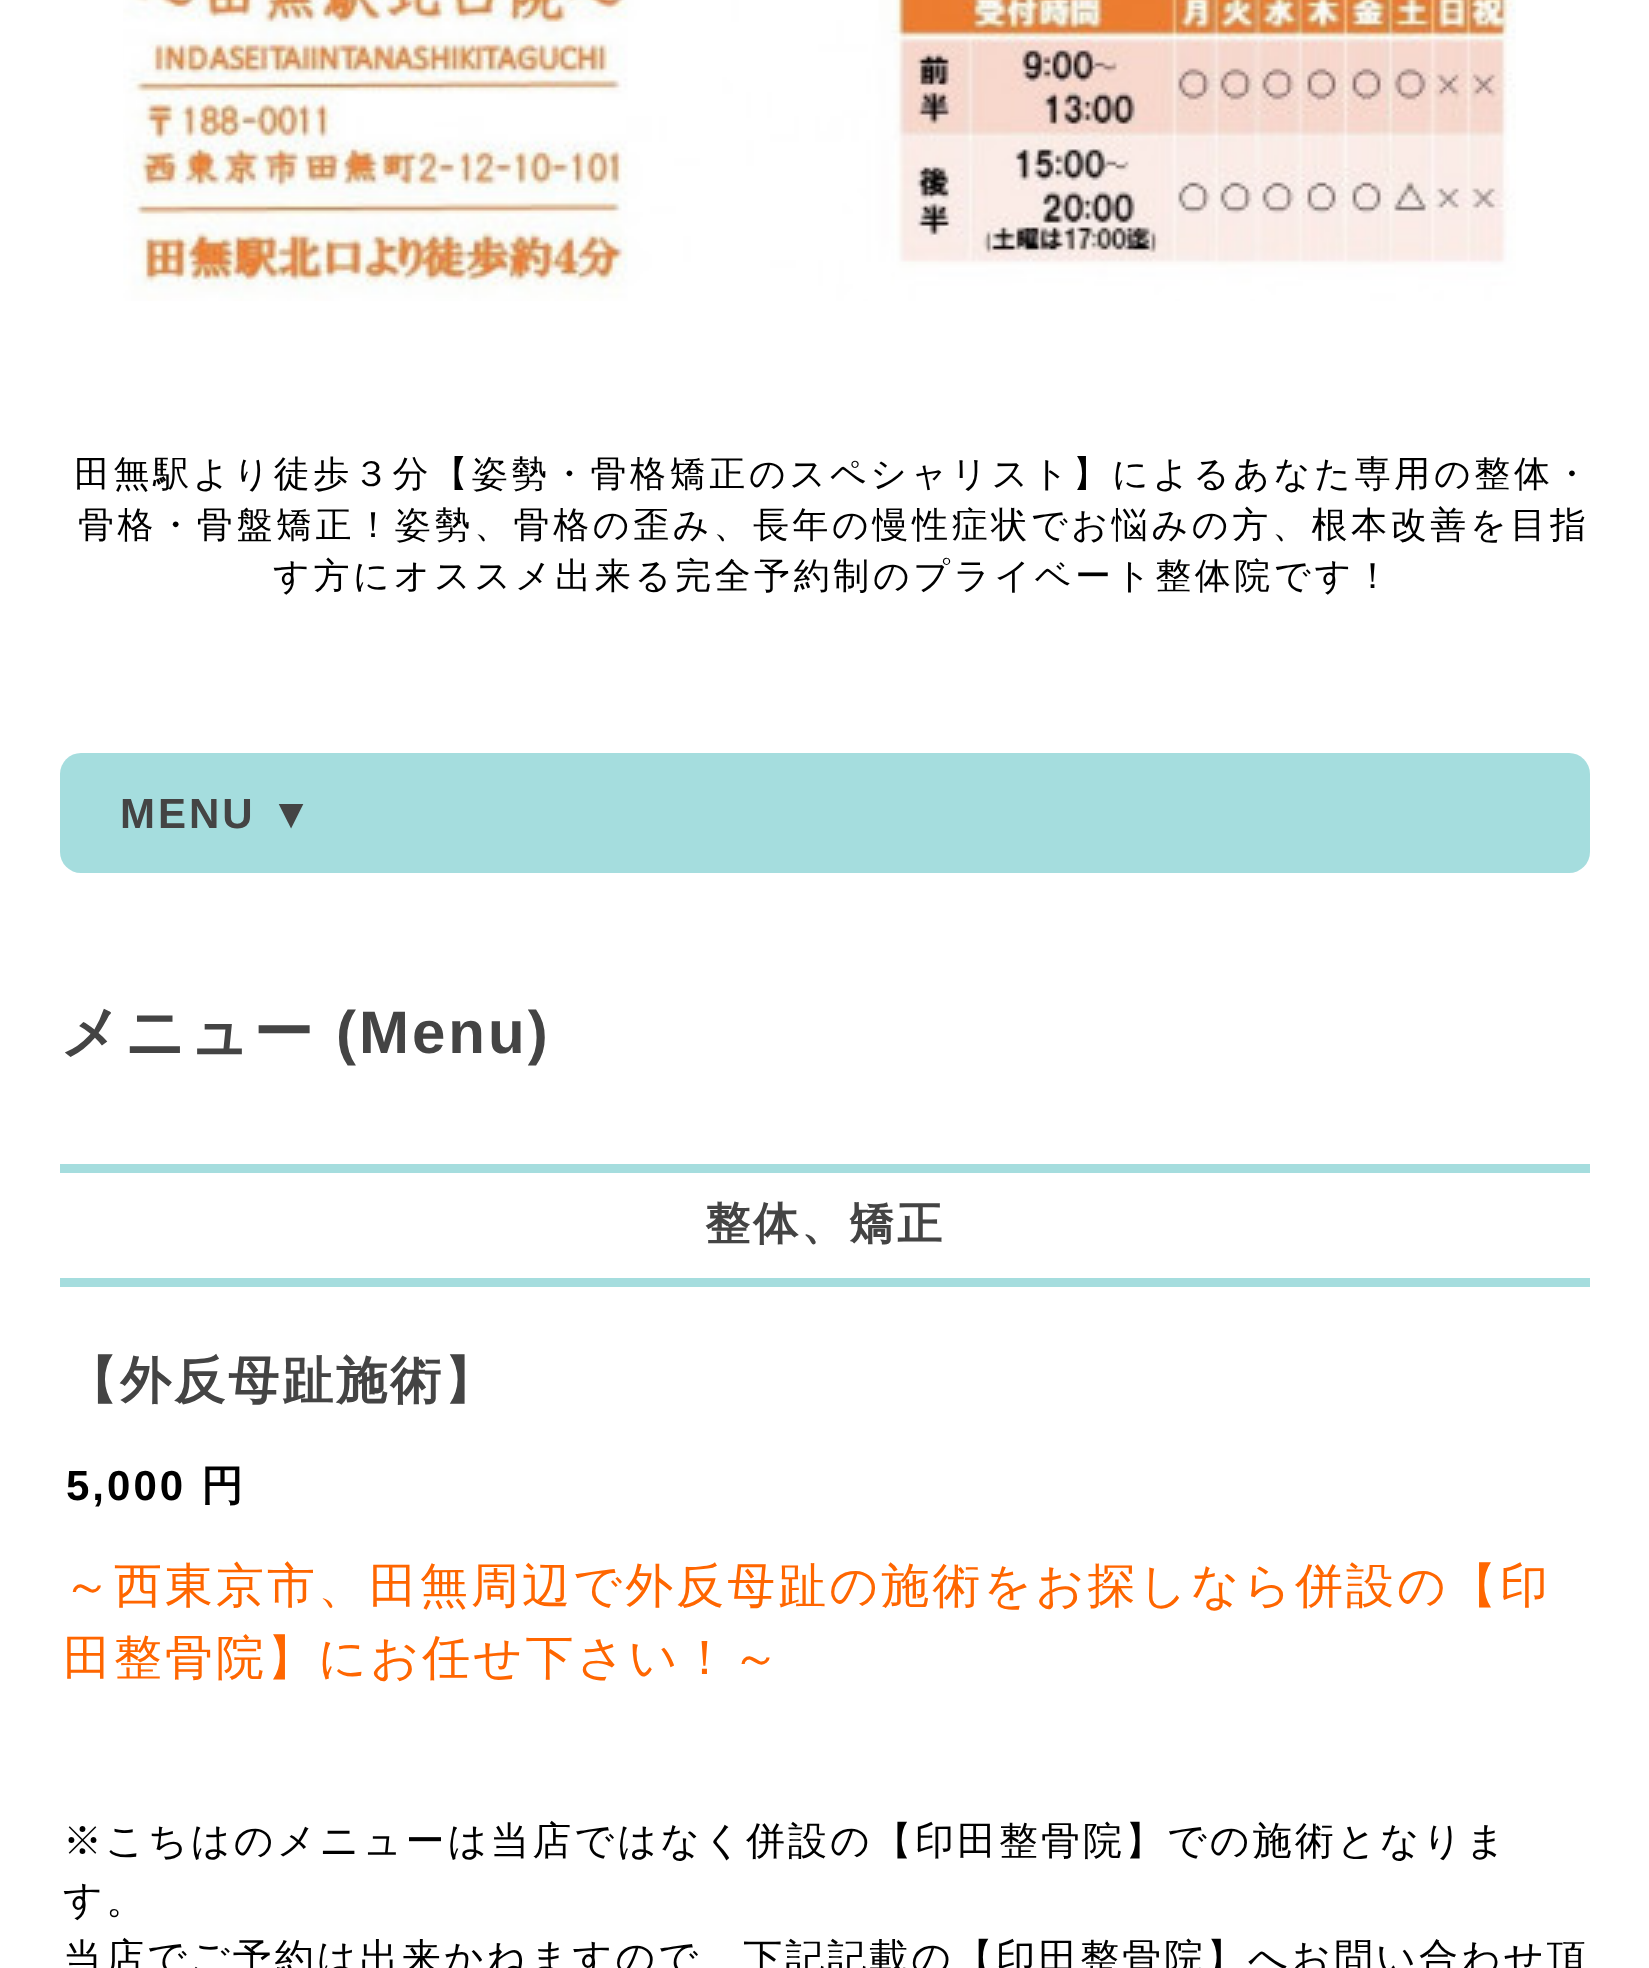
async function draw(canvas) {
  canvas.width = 1649
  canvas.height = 1968
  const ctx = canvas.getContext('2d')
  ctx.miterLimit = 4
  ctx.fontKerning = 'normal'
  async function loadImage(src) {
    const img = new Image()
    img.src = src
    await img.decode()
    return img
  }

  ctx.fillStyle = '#fff'
  ctx.fillRect(0, 0, 1649, 1968)
  ctx.drawImage(await loadImage('image0.png'), 123, 0, 1393, 301)
  ctx.letterSpacing = '3.6px'
  ctx.font = '500 36px WenQuanYi Zen Hei'
  ctx.fillStyle = '#000'
  ctx.fillText('田無駅より徒歩３分【姿勢・骨格矯正のスペシャリスト】によるあなた専用の整体・', 74, 486)
  ctx.fillText('骨格・骨盤矯正！姿勢、骨格の歪み、長年の慢性症状でお悩みの方、根本改善を目指', 78, 537)
  ctx.fillText('す方にオススメ出来る完全予約制のプライベート整体院です！', 273, 588)
  ctx.fillStyle = '#a5ddde'
  ctx.beginPath()
  ctx.roundRect(60, 753, 1530, 120, 21)
  ctx.fill()
  ctx.letterSpacing = '3px'
  ctx.font = 'bold 42px Liberation Sans'
  ctx.fillStyle = '#444'
  ctx.fillText('MENU ▼', 120, 828)
  ctx.font = 'bold 60px WenQuanYi Zen Hei'
  ctx.fillText('メニュー', 60, 1053)
  ctx.font = 'bold 60px Liberation Sans'
  ctx.fillText('(Menu)', 336, 1053)
  ctx.fillStyle = '#a5ddde'
  ctx.fillRect(60, 1164, 1530, 9)
  ctx.font = 'bold 45px WenQuanYi Zen Hei'
  ctx.fillStyle = '#444'
  ctx.fillText('整体、矯正', 705, 1239)
  ctx.fillStyle = '#a5ddde'
  ctx.fillRect(60, 1278, 1530, 9)
  ctx.font = 'bold 51px WenQuanYi Zen Hei'
  ctx.fillStyle = '#444'
  ctx.fillText('【外反母趾施術】', 66, 1398)
  ctx.font = 'bold 42px Liberation Sans'
  ctx.fillStyle = '#000'
  ctx.fillText('5,000', 66, 1500)
  ctx.font = 'bold 42px WenQuanYi Zen Hei'
  ctx.fillText('円', 201, 1500)
  ctx.font = '500 48px WenQuanYi Zen Hei'
  ctx.fillStyle = '#f60'
  ctx.fillText('～西東京市、田無周辺で外反母趾の施術をお探しなら併設の【印', 63, 1602)
  ctx.fillText('田整骨院】にお任せ下さい！～', 63, 1674)
  ctx.font = '500 39px WenQuanYi Zen Hei'
  ctx.fillStyle = '#000'
  ctx.fillText('※こちはのメニューは当店ではなく併設の【印田整骨院】での施術となりま', 63, 1854)
  ctx.fillText('す。', 63, 1913)
  ctx.fillText('当店でご予約は出来かねますので、下記記載の【印田整骨院】へお問い合わせ頂', 63, 1971)
}

draw(document.querySelector('canvas'))
